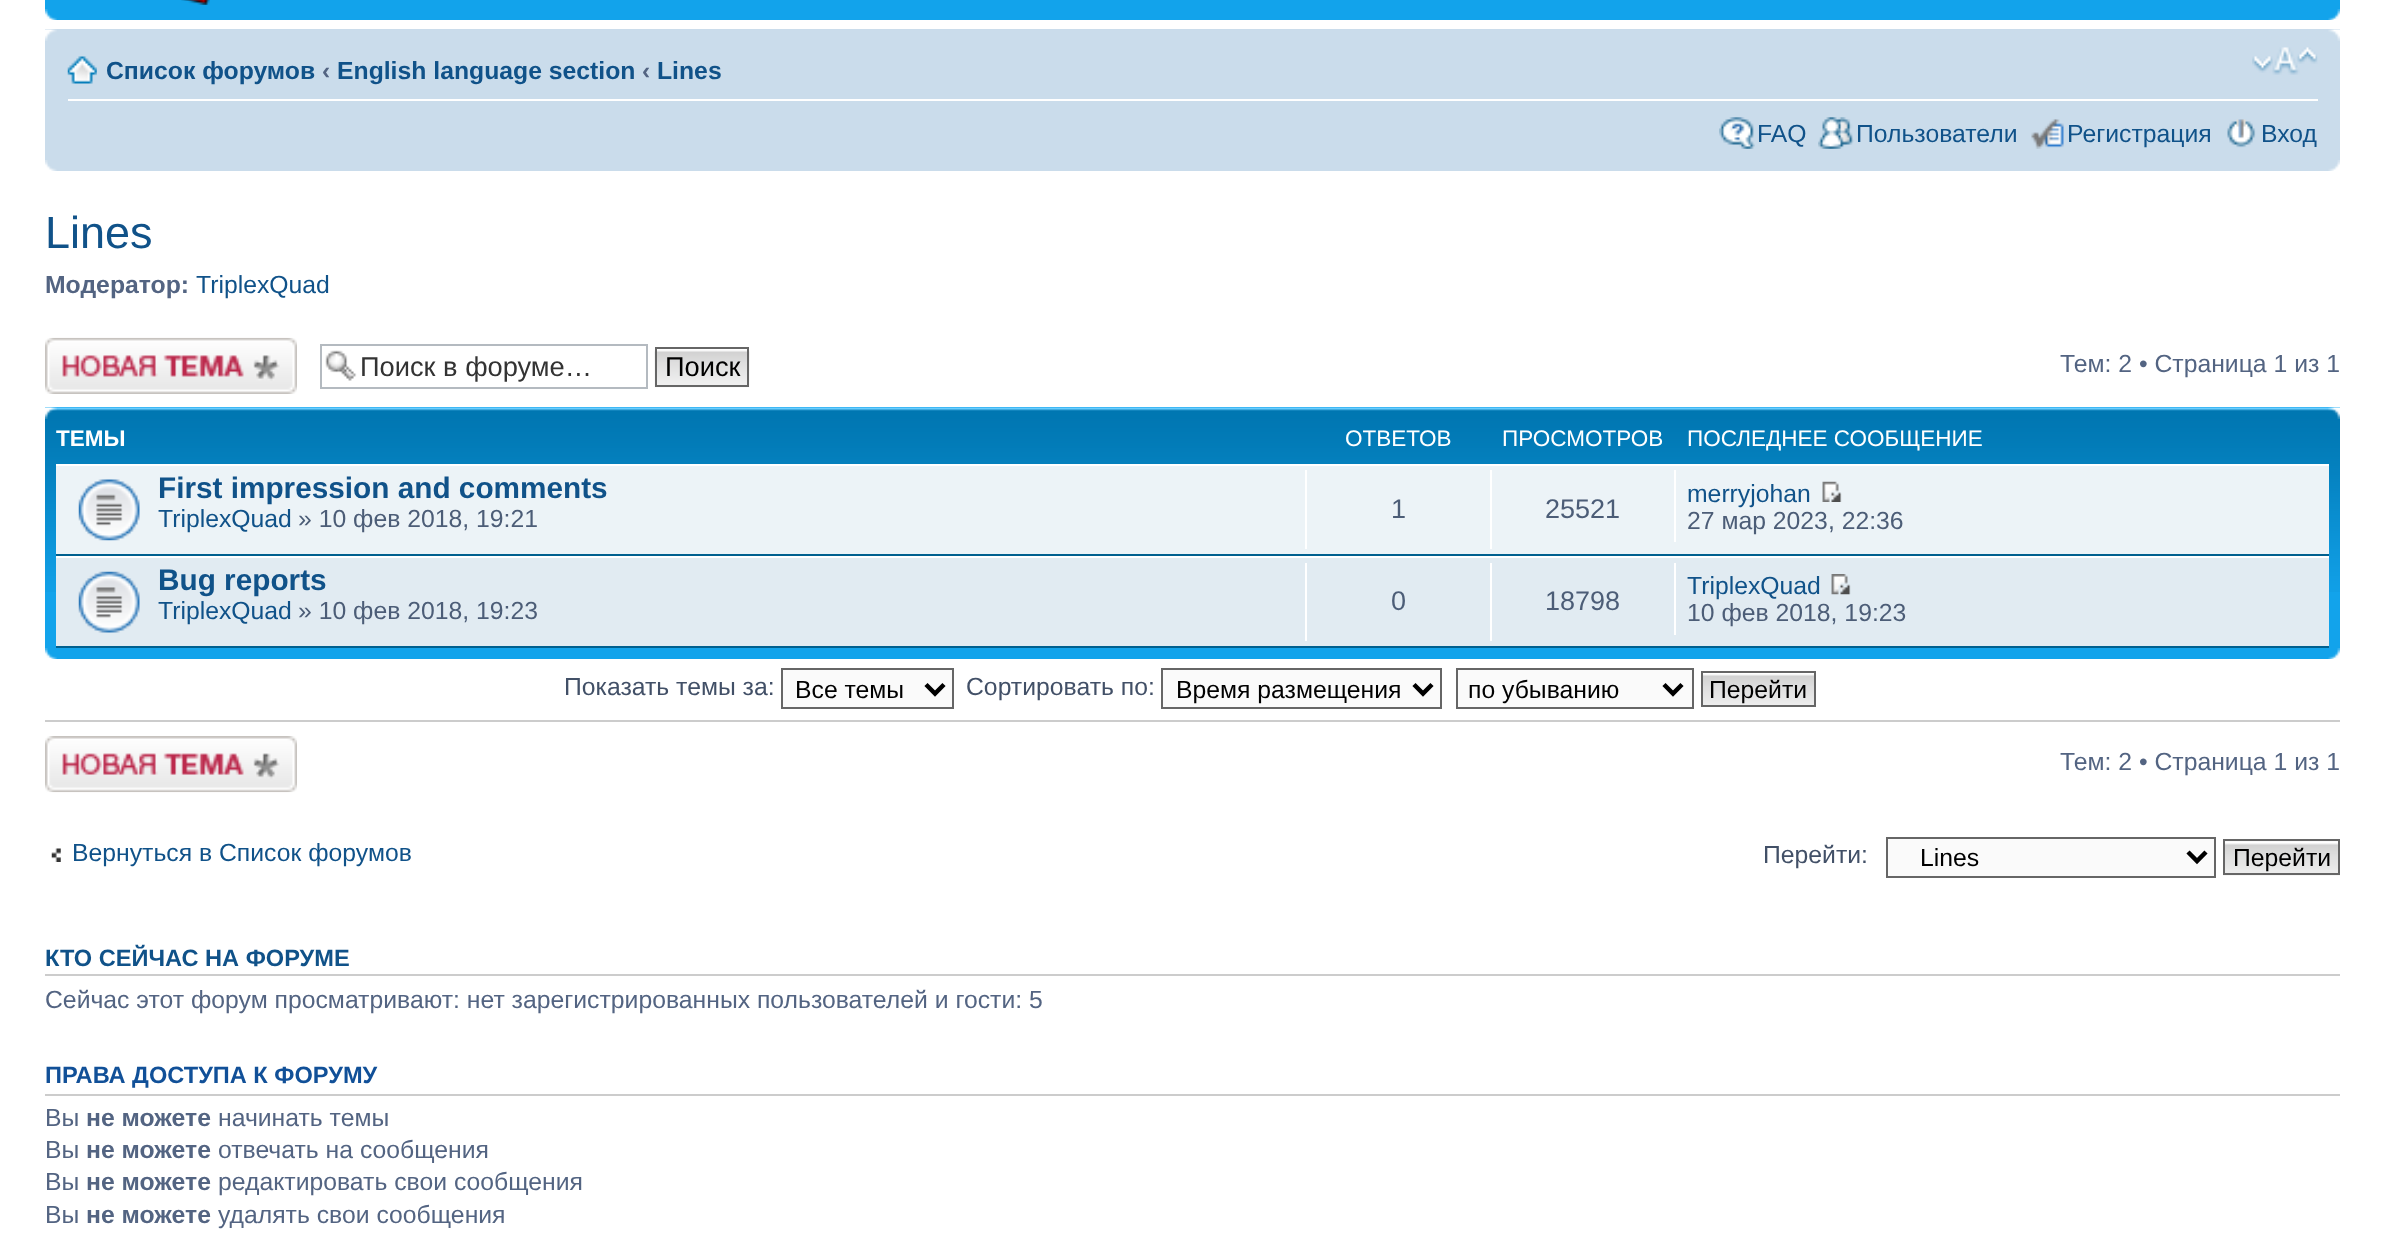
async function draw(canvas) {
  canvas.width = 2385
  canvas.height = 1259
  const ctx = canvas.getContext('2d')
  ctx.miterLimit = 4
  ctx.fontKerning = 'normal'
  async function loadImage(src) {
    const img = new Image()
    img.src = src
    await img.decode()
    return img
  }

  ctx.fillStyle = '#fff'
  ctx.fillRect(0, 0, 2385, 1259)
  ctx.fillStyle = '#12a3eb'
  ctx.fillRect(45, 0, 2295, 20)
  ctx.drawImage(await loadImage('image0.png'), 181, 0, 29, 5)
  ctx.drawImage(await loadImage('image1.png'), 45, 9, 12, 11)
  ctx.drawImage(await loadImage('image2.png'), 2328, 9, 12, 11)
  ctx.fillStyle = '#cadceb'
  ctx.fillRect(45, 29, 2295, 142)
  ctx.drawImage(await loadImage('image3.png'), 45, 29, 12, 12)
  ctx.drawImage(await loadImage('image4.png'), 2328, 29, 12, 12)
  ctx.fillStyle = '#fff'
  ctx.fillRect(68, 99, 2250, 2)
  ctx.drawImage(await loadImage('image5.png'), 67, 56, 30, 28)
  ctx.font = 'bold 24.75px Liberation Sans'
  ctx.fillStyle = '#105289'
  ctx.fillText('Список форумов', 106, 79)
  ctx.fillStyle = '#536482'
  ctx.fillText('‹', 322, 79)
  ctx.fillStyle = '#105289'
  ctx.fillText('English language section', 337, 79)
  ctx.fillStyle = '#536482'
  ctx.fillText('‹', 642, 79)
  ctx.fillStyle = '#105289'
  ctx.fillText('Lines', 657, 79)
  ctx.drawImage(await loadImage('image6.png'), 2252, 47, 66, 28)
  ctx.drawImage(await loadImage('image7.png'), 1719, 117, 36, 32)
  ctx.font = '24.75px Liberation Sans'
  ctx.fillText('FAQ', 1757, 142)
  ctx.drawImage(await loadImage('image8.png'), 1818, 117, 36, 32)
  ctx.fillText('Пользователи', 1856, 142)
  ctx.drawImage(await loadImage('image9.png'), 2031, 119, 33, 30)
  ctx.fillText('Регистрация', 2067, 142)
  ctx.drawImage(await loadImage('image10.png'), 2227, 119, 29, 29)
  ctx.fillText('Вход', 2261, 142)
  ctx.drawImage(await loadImage('image11.png'), 45, 160, 12, 11)
  ctx.drawImage(await loadImage('image12.png'), 2328, 160, 12, 11)
  ctx.font = '45px Liberation Sans'
  ctx.fillText('Lines', 45, 248)
  ctx.font = 'bold 24.75px Liberation Sans'
  ctx.fillStyle = '#536482'
  ctx.fillText('Модератор:', 45, 293)
  ctx.font = '24.75px Liberation Sans'
  ctx.fillStyle = '#105289'
  ctx.fillText('TriplexQuad', 196, 293)
  ctx.drawImage(await loadImage('image13.png'), 45, 337, 252, 57)
  ctx.drawImage(await loadImage('image14.png'), 325, 350, 32, 31)
  ctx.strokeStyle = '#b4bac0'
  ctx.lineWidth = 2
  ctx.strokeRect(321, 345, 326, 43)
  ctx.font = '27.25px Liberation Sans'
  ctx.fillStyle = '#333'
  ctx.fillText('Поиск в форуме…', 360, 376)
  ctx.drawImage(await loadImage('image15.png'), 654, 349, 96, 39)
  ctx.strokeStyle = '#666'
  ctx.strokeRect(656, 348, 92, 38)
  ctx.fillStyle = '#000'
  ctx.fillText('Поиск', 665, 376)
  ctx.font = '24.75px Liberation Sans'
  ctx.fillStyle = '#536482'
  ctx.fillText('Тем: 2 • Страница 1 из 1', 2060, 372)
  ctx.fillStyle = '#12a3eb'
  ctx.fillRect(45, 407, 2295, 252)
  ctx.drawImage(await loadImage('image16.png'), 45, 407, 2295, 185)
  ctx.drawImage(await loadImage('image17.png'), 45, 407, 12, 12)
  ctx.drawImage(await loadImage('image18.png'), 2328, 407, 12, 12)
  ctx.font = 'bold 22.5px Liberation Sans'
  ctx.fillStyle = '#fff'
  ctx.fillText('ТЕМЫ', 56, 446)
  ctx.font = '22.5px Liberation Sans'
  ctx.fillText('ОТВЕТОВ', 1345, 446)
  ctx.fillText('ПРОСМОТРОВ', 1502, 446)
  ctx.fillText('ПОСЛЕДНЕЕ СООБЩЕНИЕ', 1687, 446)
  ctx.fillStyle = '#ecf3f7'
  ctx.fillRect(56, 466, 2273, 88)
  ctx.fillStyle = '#fff'
  ctx.fillRect(56, 464, 2273, 2)
  ctx.fillStyle = '#00608f'
  ctx.fillRect(56, 554, 2273, 2)
  ctx.drawImage(await loadImage('image19.png'), 78, 479, 62, 62)
  ctx.font = 'bold 29.75px Liberation Sans'
  ctx.fillStyle = '#105289'
  ctx.fillText('First impression and comments', 158, 498)
  ctx.font = '24.75px Liberation Sans'
  ctx.fillText('TriplexQuad', 158, 527)
  ctx.fillStyle = '#4c5d77'
  ctx.fillText('» 10 фев 2018, 19:21', 298, 527)
  ctx.fillStyle = '#fff'
  ctx.fillRect(1305, 470, 2, 79)
  ctx.font = '27px Liberation Sans'
  ctx.fillStyle = '#4c5d77'
  ctx.fillText('1', 1391, 518)
  ctx.fillStyle = '#fff'
  ctx.fillRect(1490, 470, 2, 79)
  ctx.fillStyle = '#4c5d77'
  ctx.fillText('25521', 1545, 518)
  ctx.fillStyle = '#fff'
  ctx.fillRect(1674, 470, 2, 72)
  ctx.font = '24.75px Liberation Sans'
  ctx.fillStyle = '#105289'
  ctx.fillText('merryjohan', 1687, 502)
  ctx.drawImage(await loadImage('image20.png'), 1822, 481, 20, 21)
  ctx.fillStyle = '#4c5d77'
  ctx.fillText('27 мар 2023, 22:36', 1687, 529)
  ctx.fillStyle = '#e1ebf2'
  ctx.fillRect(56, 558, 2273, 88)
  ctx.fillStyle = '#fff'
  ctx.fillRect(56, 556, 2273, 2)
  ctx.fillStyle = '#00608f'
  ctx.fillRect(56, 646, 2273, 2)
  ctx.drawImage(await loadImage('image21.png'), 78, 571, 62, 62)
  ctx.font = 'bold 29.75px Liberation Sans'
  ctx.fillStyle = '#105289'
  ctx.fillText('Bug reports', 158, 590)
  ctx.font = '24.75px Liberation Sans'
  ctx.fillText('TriplexQuad', 158, 619)
  ctx.fillStyle = '#4c5d77'
  ctx.fillText('» 10 фев 2018, 19:23', 298, 619)
  ctx.fillStyle = '#fff'
  ctx.fillRect(1305, 563, 2, 78)
  ctx.font = '27px Liberation Sans'
  ctx.fillStyle = '#4c5d77'
  ctx.fillText('0', 1391, 610)
  ctx.fillStyle = '#fff'
  ctx.fillRect(1490, 563, 2, 78)
  ctx.fillStyle = '#4c5d77'
  ctx.fillText('18798', 1545, 610)
  ctx.fillStyle = '#fff'
  ctx.fillRect(1674, 563, 2, 72)
  ctx.font = '24.75px Liberation Sans'
  ctx.fillStyle = '#105289'
  ctx.fillText('TriplexQuad', 1687, 594)
  ctx.drawImage(await loadImage('image22.png'), 1831, 574, 20, 21)
  ctx.fillStyle = '#4c5d77'
  ctx.fillText('10 фев 2018, 19:23', 1687, 621)
  ctx.drawImage(await loadImage('image1.png'), 45, 648, 12, 11)
  ctx.drawImage(await loadImage('image2.png'), 2328, 648, 12, 11)
  ctx.fillStyle = '#425067'
  ctx.fillText('Показать темы за:', 564, 695)
  ctx.fillStyle = '#fafafa'
  ctx.beginPath()
  ctx.rect(782, 669, 171, 39)
  ctx.fill()
  ctx.stroke()
  ctx.beginPath()
  ctx.moveTo(926, 684.5)
  ctx.lineTo(935, 693.5)
  ctx.lineTo(944, 684.5)
  ctx.strokeStyle = '#000'
  ctx.lineWidth = 4.5
  ctx.stroke()
  ctx.fillStyle = '#000'
  ctx.fillText('Все темы', 795, 698)
  ctx.fillStyle = '#425067'
  ctx.fillText('Сортировать по:', 966, 695)
  ctx.fillStyle = '#fafafa'
  ctx.beginPath()
  ctx.rect(1162, 669, 279, 39)
  ctx.fill()
  ctx.strokeStyle = '#666'
  ctx.lineWidth = 2
  ctx.stroke()
  ctx.beginPath()
  ctx.moveTo(1414, 684.5)
  ctx.lineTo(1423, 693.5)
  ctx.lineTo(1432, 684.5)
  ctx.strokeStyle = '#000'
  ctx.lineWidth = 4.5
  ctx.stroke()
  ctx.fillStyle = '#000'
  ctx.fillText('Время размещения', 1176, 698)
  ctx.fillStyle = '#fafafa'
  ctx.beginPath()
  ctx.rect(1457, 669, 236, 39)
  ctx.fill()
  ctx.strokeStyle = '#666'
  ctx.lineWidth = 2
  ctx.stroke()
  ctx.beginPath()
  ctx.moveTo(1664, 684.5)
  ctx.lineTo(1673, 693.5)
  ctx.lineTo(1682, 684.5)
  ctx.strokeStyle = '#000'
  ctx.lineWidth = 4.5
  ctx.stroke()
  ctx.fillStyle = '#000'
  ctx.fillText('по убыванию', 1468, 698)
  ctx.drawImage(await loadImage('image23.png'), 1703, 673, 111, 32)
  ctx.strokeStyle = '#666'
  ctx.lineWidth = 2
  ctx.strokeRect(1702, 672, 113, 34)
  ctx.fillText('Перейти', 1709, 698)
  ctx.fillStyle = '#ccc'
  ctx.fillRect(45, 720, 2295, 2)
  ctx.drawImage(await loadImage('image24.png'), 45, 736, 252, 57)
  ctx.fillStyle = '#536482'
  ctx.fillText('Тем: 2 • Страница 1 из 1', 2060, 770)
  ctx.drawImage(await loadImage('image25.png'), 51, 848, 10, 14)
  ctx.fillStyle = '#105289'
  ctx.fillText('Вернуться в Список форумов', 72, 861)
  ctx.fillStyle = '#425067'
  ctx.fillText('Перейти:', 1763, 863)
  ctx.fillStyle = '#fafafa'
  ctx.beginPath()
  ctx.rect(1887, 838, 328, 39)
  ctx.fill()
  ctx.stroke()
  ctx.beginPath()
  ctx.moveTo(2188, 852)
  ctx.lineTo(2197, 861)
  ctx.lineTo(2206, 852)
  ctx.strokeStyle = '#000'
  ctx.lineWidth = 4.5
  ctx.stroke()
  ctx.fillStyle = '#000'
  ctx.fillText('Lines', 1920, 866)
  ctx.fillStyle = '#fafafa'
  ctx.fillRect(2225, 841, 113, 1)
  ctx.drawImage(await loadImage('image26.png'), 2223, 842, 117, 34)
  ctx.strokeStyle = '#666'
  ctx.lineWidth = 2
  ctx.strokeRect(2224, 840, 115, 34)
  ctx.fillStyle = '#000'
  ctx.fillText('Перейти', 2233, 866)
  ctx.fillStyle = '#ccc'
  ctx.fillRect(45, 974, 2295, 2)
  ctx.font = 'bold 23.6px Liberation Sans'
  ctx.fillStyle = '#105289'
  ctx.fillText('КТО СЕЙЧАС НА ФОРУМЕ', 45, 966)
  ctx.font = '24.75px Liberation Sans'
  ctx.fillStyle = '#536482'
  ctx.fillText('Сейчас этот форум просматривают: нет зарегистрированных пользователей и гости: 5', 45, 1008)
  ctx.fillStyle = '#ccc'
  ctx.fillRect(45, 1094, 2295, 2)
  ctx.font = 'bold 23.6px Liberation Sans'
  ctx.fillStyle = '#115098'
  ctx.fillText('ПРАВА ДОСТУПА К ФОРУМУ', 45, 1083)
  ctx.font = '24.75px Liberation Sans'
  ctx.fillStyle = '#536482'
  ctx.fillText('Вы', 45, 1126)
  ctx.font = 'bold 24.75px Liberation Sans'
  ctx.fillText('не можете', 86, 1126)
  ctx.font = '24.75px Liberation Sans'
  ctx.fillText('начинать темы', 218, 1126)
  ctx.fillText('Вы', 45, 1158)
  ctx.font = 'bold 24.75px Liberation Sans'
  ctx.fillText('не можете', 86, 1158)
  ctx.font = '24.75px Liberation Sans'
  ctx.fillText('отвечать на сообщения', 218, 1158)
  ctx.fillText('Вы', 45, 1190)
  ctx.font = 'bold 24.75px Liberation Sans'
  ctx.fillText('не можете', 86, 1190)
  ctx.font = '24.75px Liberation Sans'
  ctx.fillText('редактировать свои сообщения', 218, 1190)
  ctx.fillText('Вы', 45, 1223)
  ctx.font = 'bold 24.75px Liberation Sans'
  ctx.fillText('не можете', 86, 1223)
  ctx.font = '24.75px Liberation Sans'
  ctx.fillText('удалять свои сообщения', 218, 1223)
}

draw(document.querySelector('canvas'))
